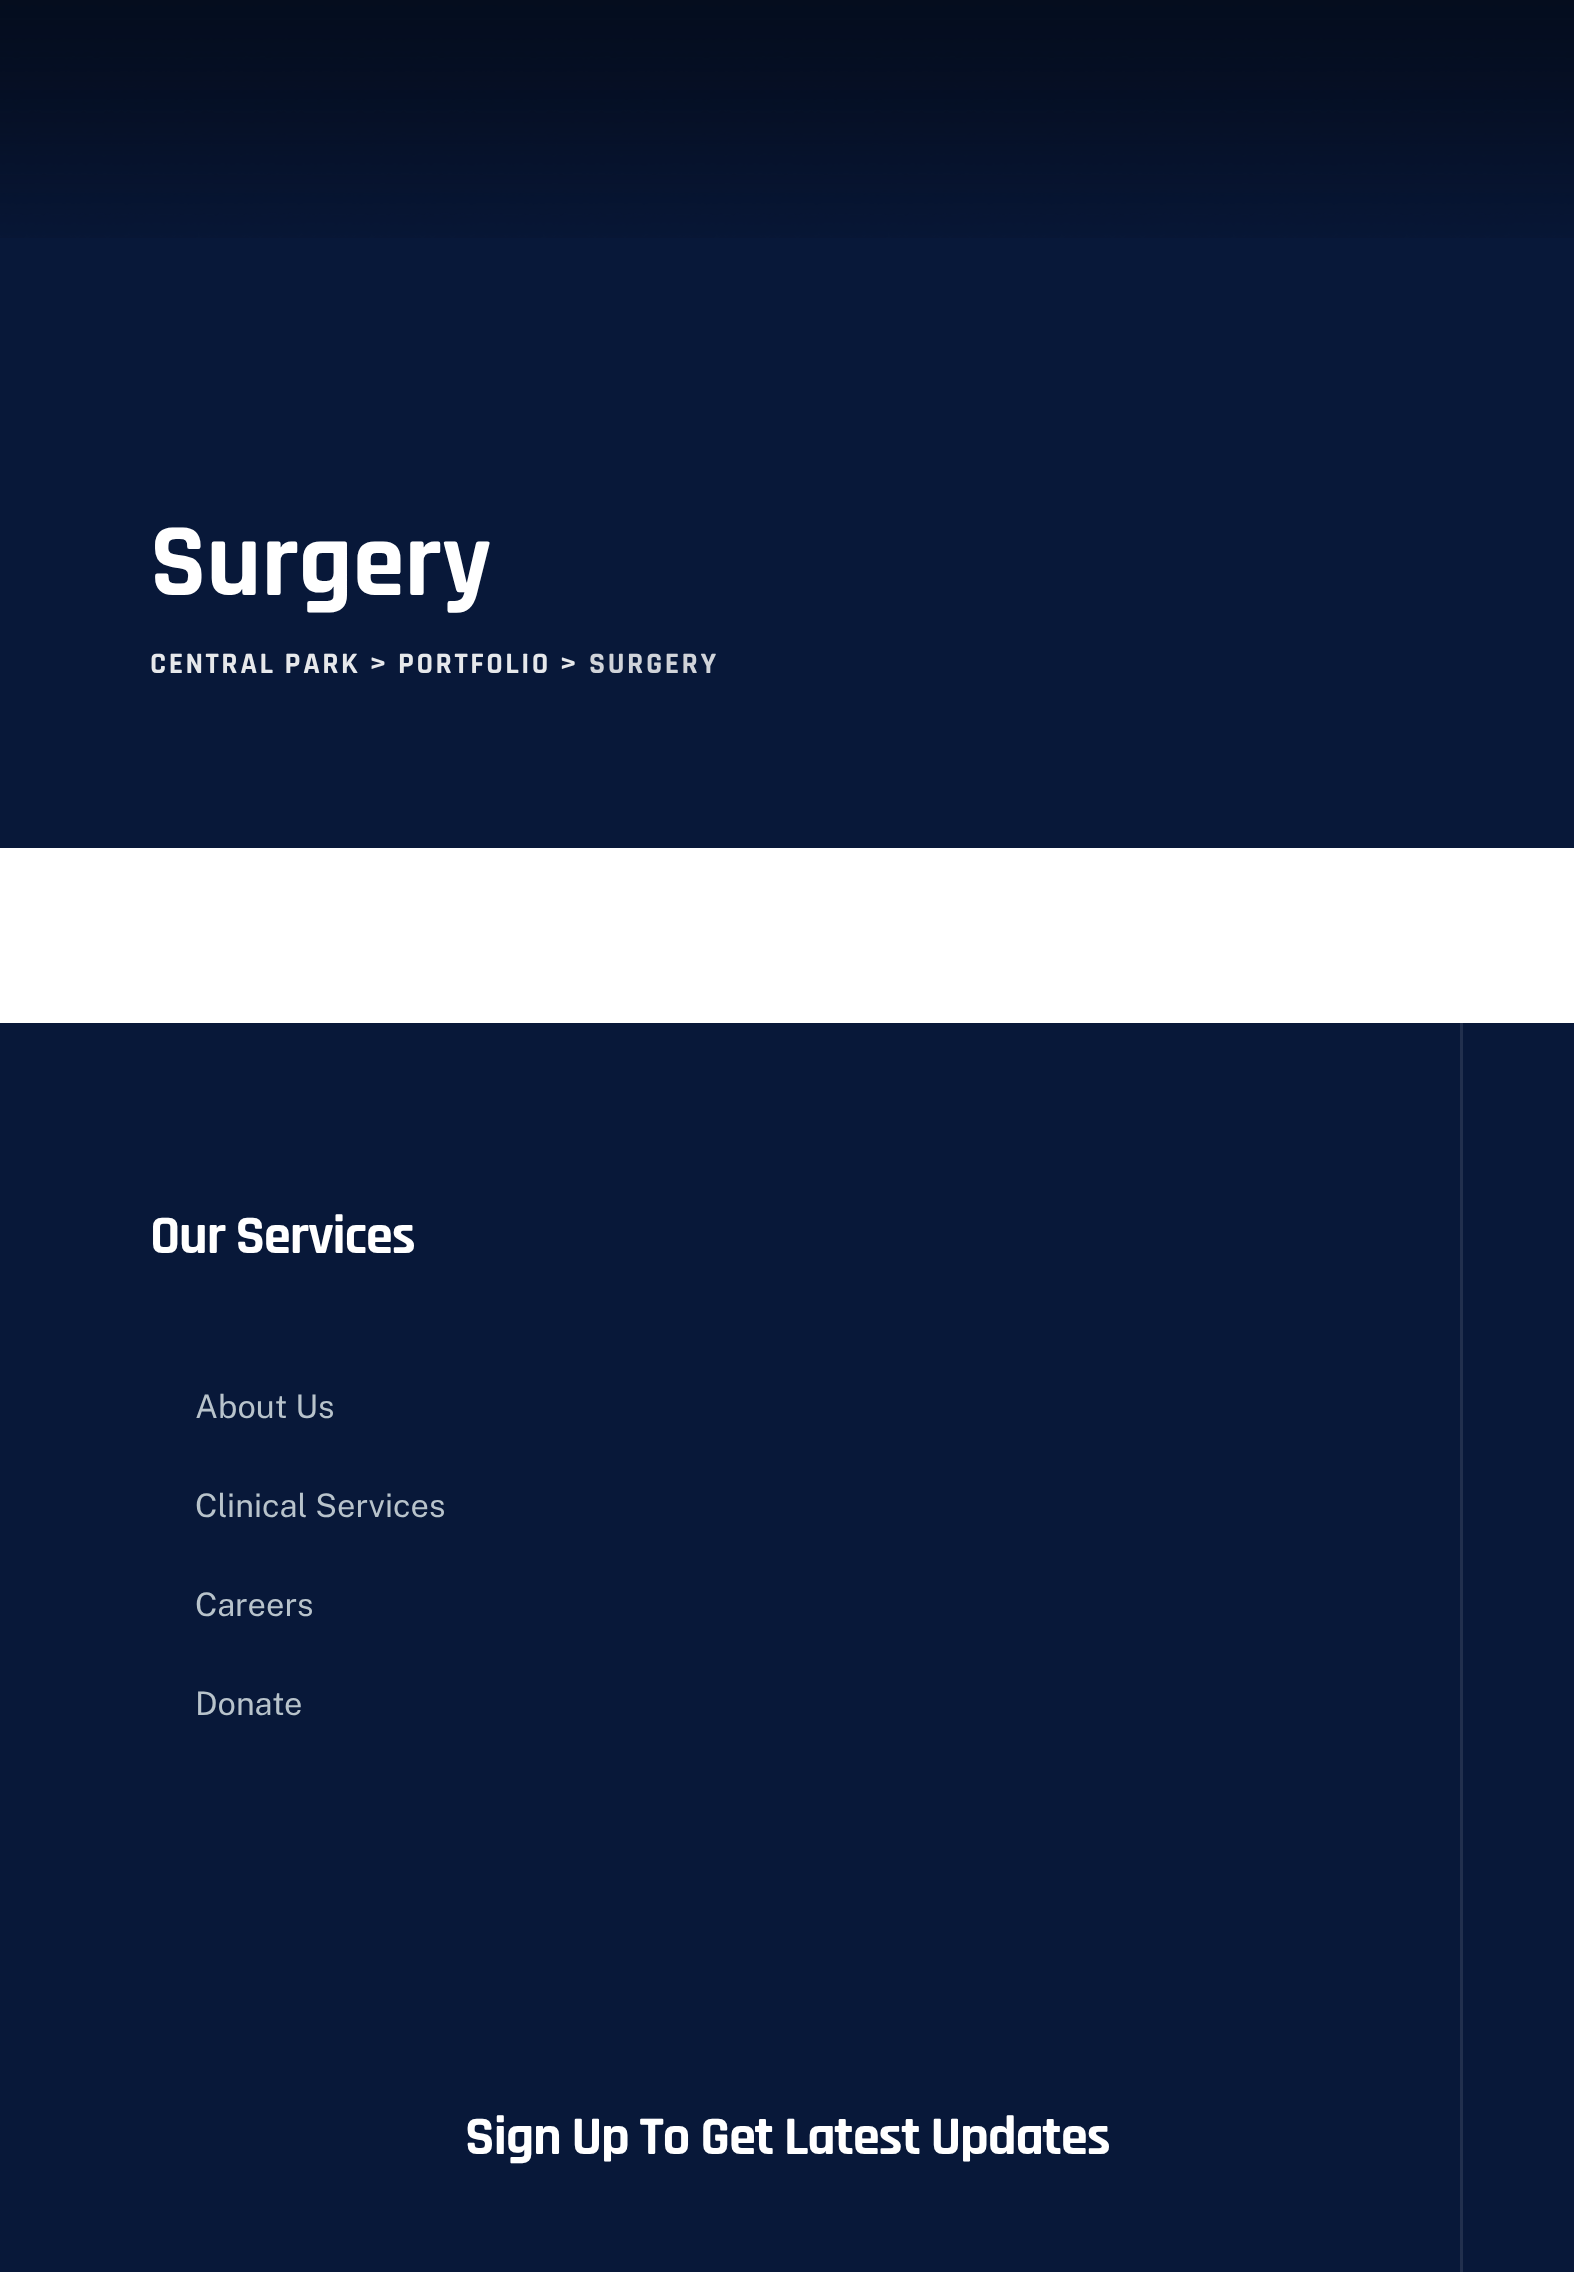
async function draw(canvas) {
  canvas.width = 1574
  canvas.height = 2272
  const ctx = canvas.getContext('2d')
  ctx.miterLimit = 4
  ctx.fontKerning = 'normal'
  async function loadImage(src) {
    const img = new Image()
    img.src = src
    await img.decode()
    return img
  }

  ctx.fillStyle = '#fff'
  ctx.fillRect(0, 0, 1574, 2272)
  ctx.fillStyle = '#081839'
  ctx.fillRect(0, 0, 1574, 848)
  ctx.drawImage(await loadImage('image0.png'), 0, 0, 1574, 238)
  ctx.font = 'bold 105px Rajdhani'
  ctx.fillStyle = '#fff'
  ctx.fillText('Surgery', 150, 595)
  ctx.letterSpacing = '2.5px'
  ctx.font = 'bold 30px Rajdhani'
  ctx.fillStyle = '#e6e8eb'
  ctx.fillText('CENTRAL PARK > PORTFOLIO >', 150, 673)
  ctx.fillStyle = '#d0d3d9'
  ctx.fillText('SURGERY', 589, 673)
  ctx.fillStyle = '#081839'
  ctx.fillRect(0, 1023, 1574, 1249)
  ctx.letterSpacing = '-1.25px'
  ctx.font = 'bold 55px Rajdhani'
  ctx.fillStyle = '#fff'
  ctx.fillText('Our Services', 150, 1253)
  ctx.letterSpacing = '0px'
  ctx.font = '32.5px Public Sans'
  ctx.fillStyle = '#b8c3cb'
  ctx.fillText('About Us', 195, 1418)
  ctx.fillText('Clinical Services', 195, 1517)
  ctx.fillText('Careers', 195, 1616)
  ctx.fillText('Donate', 195, 1715)
  ctx.fillStyle = '#212f4d'
  ctx.fillRect(1460, 1023, 3, 1249)
  ctx.letterSpacing = '-1.25px'
  ctx.font = 'bold 55px Rajdhani'
  ctx.fillStyle = '#fff'
  ctx.fillText('Sign Up To Get Latest Updates', 465, 2154)
}

draw(document.querySelector('canvas'))
